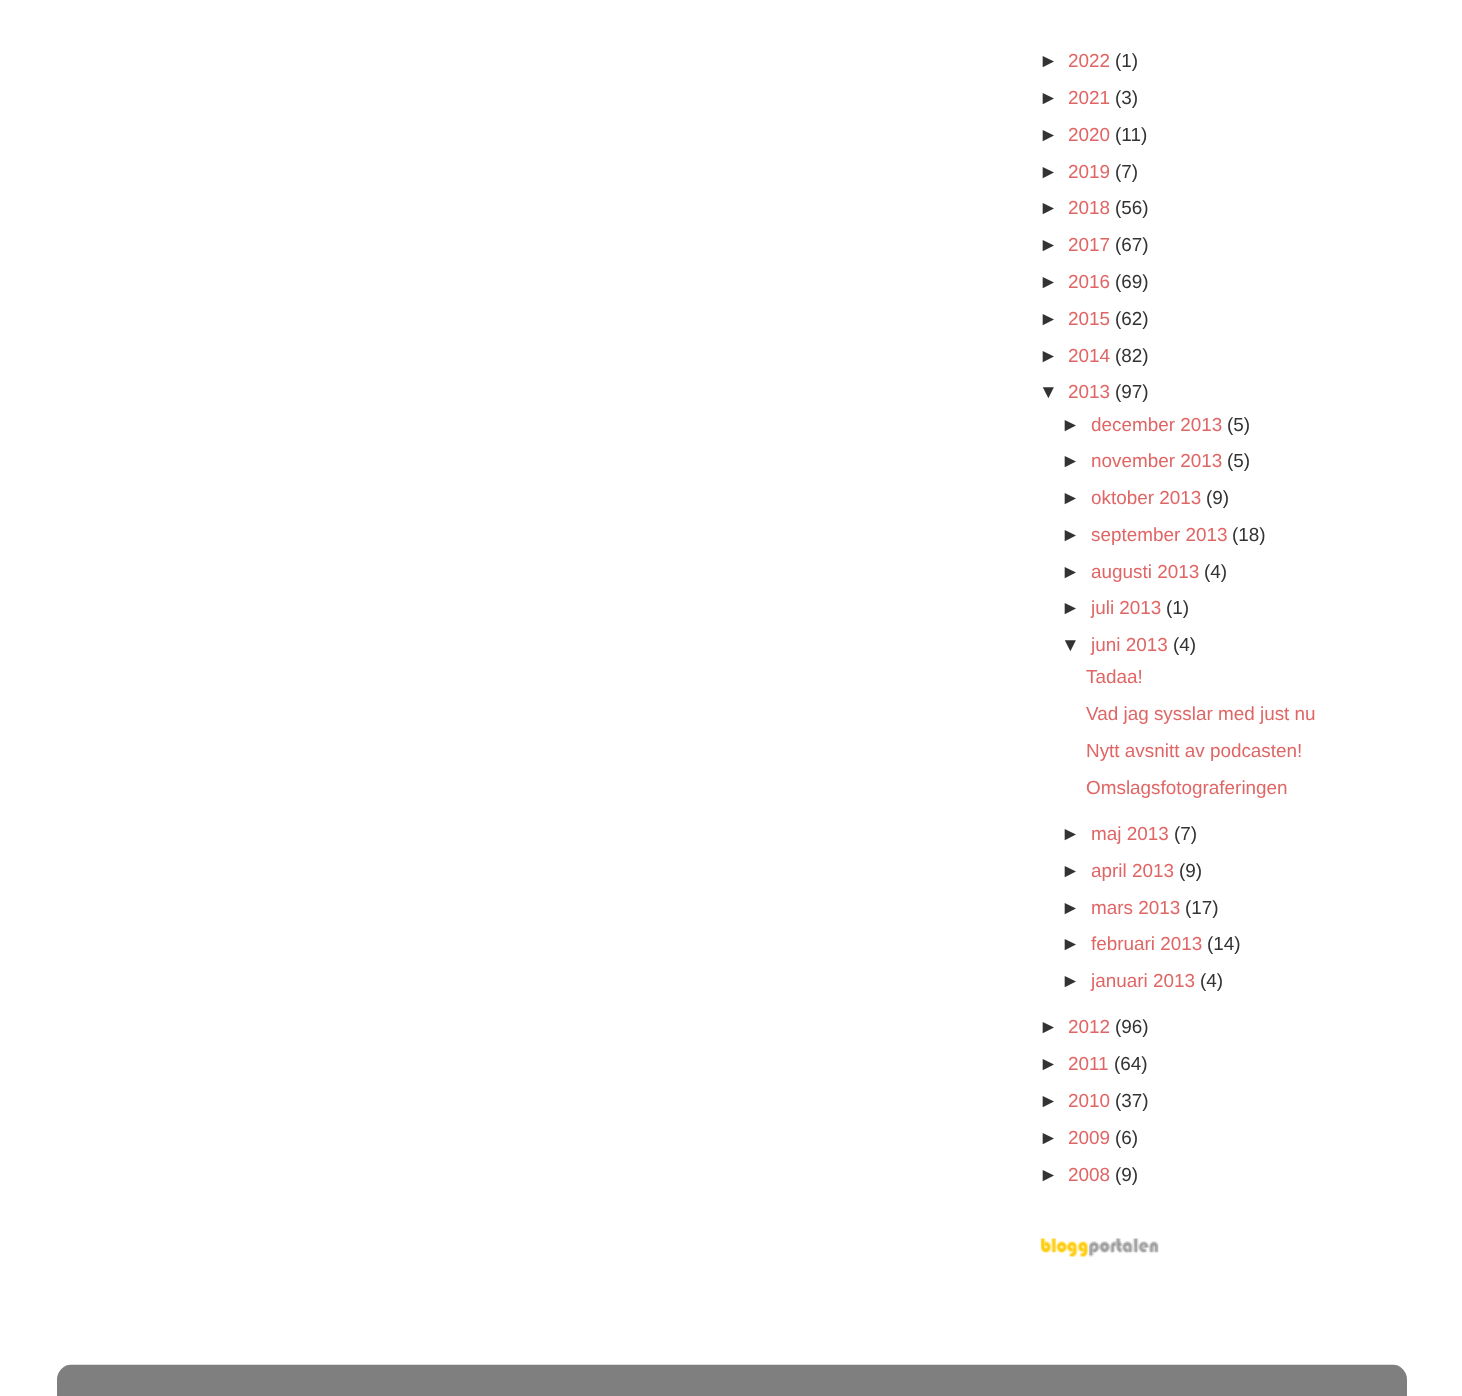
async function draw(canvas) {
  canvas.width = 1462
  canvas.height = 1396
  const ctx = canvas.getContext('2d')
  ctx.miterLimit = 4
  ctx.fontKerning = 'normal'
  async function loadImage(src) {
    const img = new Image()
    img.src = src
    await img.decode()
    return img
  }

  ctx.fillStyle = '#fff'
  ctx.fillRect(0, 0, 1462, 1396)
  ctx.font = '18.9px Liberation Sans'
  ctx.fillStyle = '#333'
  ctx.fillText('►', 1039, 67)
  ctx.fillStyle = '#e06666'
  ctx.fillText('2022', 1068, 67)
  ctx.fillStyle = '#333'
  ctx.fillText('(1)', 1115, 67)
  ctx.fillText('►', 1039, 104)
  ctx.fillStyle = '#e06666'
  ctx.fillText('2021', 1068, 104)
  ctx.fillStyle = '#333'
  ctx.fillText('(3)', 1115, 104)
  ctx.fillText('►', 1039, 141)
  ctx.fillStyle = '#e06666'
  ctx.fillText('2020', 1068, 141)
  ctx.fillStyle = '#333'
  ctx.fillText('(11)', 1115, 141)
  ctx.fillText('►', 1039, 178)
  ctx.fillStyle = '#e06666'
  ctx.fillText('2019', 1068, 178)
  ctx.fillStyle = '#333'
  ctx.fillText('(7)', 1115, 178)
  ctx.fillText('►', 1039, 214)
  ctx.fillStyle = '#e06666'
  ctx.fillText('2018', 1068, 214)
  ctx.fillStyle = '#333'
  ctx.fillText('(56)', 1115, 214)
  ctx.fillText('►', 1039, 251)
  ctx.fillStyle = '#e06666'
  ctx.fillText('2017', 1068, 251)
  ctx.fillStyle = '#333'
  ctx.fillText('(67)', 1115, 251)
  ctx.fillText('►', 1039, 288)
  ctx.fillStyle = '#e06666'
  ctx.fillText('2016', 1068, 288)
  ctx.fillStyle = '#333'
  ctx.fillText('(69)', 1115, 288)
  ctx.fillText('►', 1039, 325)
  ctx.fillStyle = '#e06666'
  ctx.fillText('2015', 1068, 325)
  ctx.fillStyle = '#333'
  ctx.fillText('(62)', 1115, 325)
  ctx.fillText('►', 1039, 362)
  ctx.fillStyle = '#e06666'
  ctx.fillText('2014', 1068, 362)
  ctx.fillStyle = '#333'
  ctx.fillText('(82)', 1115, 362)
  ctx.fillText('▼', 1039, 398)
  ctx.fillStyle = '#e06666'
  ctx.fillText('2013', 1068, 398)
  ctx.fillStyle = '#333'
  ctx.fillText('(97)', 1115, 398)
  ctx.fillText('►', 1061, 431)
  ctx.fillStyle = '#e06666'
  ctx.fillText('december 2013', 1091, 431)
  ctx.fillStyle = '#333'
  ctx.fillText('(5)', 1227, 431)
  ctx.fillText('►', 1061, 467)
  ctx.fillStyle = '#e06666'
  ctx.fillText('november 2013', 1091, 467)
  ctx.fillStyle = '#333'
  ctx.fillText('(5)', 1227, 467)
  ctx.fillText('►', 1061, 504)
  ctx.fillStyle = '#e06666'
  ctx.fillText('oktober 2013', 1091, 504)
  ctx.fillStyle = '#333'
  ctx.fillText('(9)', 1206, 504)
  ctx.fillText('►', 1061, 541)
  ctx.fillStyle = '#e06666'
  ctx.fillText('september 2013', 1091, 541)
  ctx.fillStyle = '#333'
  ctx.fillText('(18)', 1232, 541)
  ctx.fillText('►', 1061, 578)
  ctx.fillStyle = '#e06666'
  ctx.fillText('augusti 2013', 1091, 578)
  ctx.fillStyle = '#333'
  ctx.fillText('(4)', 1204, 578)
  ctx.fillText('►', 1061, 614)
  ctx.fillStyle = '#e06666'
  ctx.fillText('juli 2013', 1091, 614)
  ctx.fillStyle = '#333'
  ctx.fillText('(1)', 1166, 614)
  ctx.fillText('▼', 1061, 651)
  ctx.fillStyle = '#e06666'
  ctx.fillText('juni 2013', 1091, 651)
  ctx.fillStyle = '#333'
  ctx.fillText('(4)', 1173, 651)
  ctx.fillStyle = '#e06666'
  ctx.fillText('Tadaa!', 1086, 683)
  ctx.fillText('Vad jag sysslar med just nu', 1086, 720)
  ctx.fillText('Nytt avsnitt av podcasten!', 1086, 757)
  ctx.fillText('Omslagsfotograferingen', 1086, 794)
  ctx.fillStyle = '#333'
  ctx.fillText('►', 1061, 840)
  ctx.fillStyle = '#e06666'
  ctx.fillText('maj 2013', 1091, 840)
  ctx.fillStyle = '#333'
  ctx.fillText('(7)', 1174, 840)
  ctx.fillText('►', 1061, 877)
  ctx.fillStyle = '#e06666'
  ctx.fillText('april 2013', 1091, 877)
  ctx.fillStyle = '#333'
  ctx.fillText('(9)', 1179, 877)
  ctx.fillText('►', 1061, 914)
  ctx.fillStyle = '#e06666'
  ctx.fillText('mars 2013', 1091, 914)
  ctx.fillStyle = '#333'
  ctx.fillText('(17)', 1185, 914)
  ctx.fillText('►', 1061, 950)
  ctx.fillStyle = '#e06666'
  ctx.fillText('februari 2013', 1091, 950)
  ctx.fillStyle = '#333'
  ctx.fillText('(14)', 1207, 950)
  ctx.fillText('►', 1061, 987)
  ctx.fillStyle = '#e06666'
  ctx.fillText('januari 2013', 1091, 987)
  ctx.fillStyle = '#333'
  ctx.fillText('(4)', 1200, 987)
  ctx.fillText('►', 1039, 1033)
  ctx.fillStyle = '#e06666'
  ctx.fillText('2012', 1068, 1033)
  ctx.fillStyle = '#333'
  ctx.fillText('(96)', 1115, 1033)
  ctx.fillText('►', 1039, 1070)
  ctx.fillStyle = '#e06666'
  ctx.fillText('2011', 1068, 1070)
  ctx.fillStyle = '#333'
  ctx.fillText('(64)', 1114, 1070)
  ctx.fillText('►', 1039, 1107)
  ctx.fillStyle = '#e06666'
  ctx.fillText('2010', 1068, 1107)
  ctx.fillStyle = '#333'
  ctx.fillText('(37)', 1115, 1107)
  ctx.fillText('►', 1039, 1144)
  ctx.fillStyle = '#e06666'
  ctx.fillText('2009', 1068, 1144)
  ctx.fillStyle = '#333'
  ctx.fillText('(6)', 1115, 1144)
  ctx.fillText('►', 1039, 1181)
  ctx.fillStyle = '#e06666'
  ctx.fillText('2008', 1068, 1181)
  ctx.fillStyle = '#333'
  ctx.fillText('(9)', 1115, 1181)
  ctx.drawImage(await loadImage('image0.png'), 1040, 1238, 119, 19)
  ctx.drawImage(await loadImage('image1.png'), 57, 1364, 1350, 32)
}

draw(document.querySelector('canvas'))
